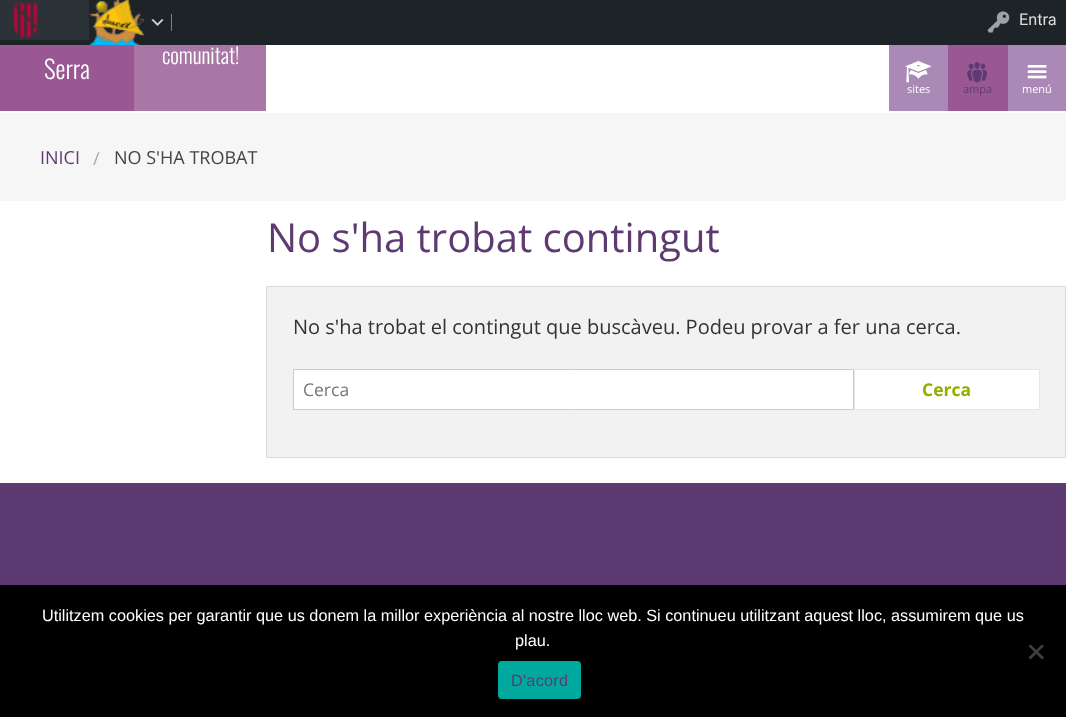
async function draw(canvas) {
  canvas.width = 1066
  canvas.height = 717
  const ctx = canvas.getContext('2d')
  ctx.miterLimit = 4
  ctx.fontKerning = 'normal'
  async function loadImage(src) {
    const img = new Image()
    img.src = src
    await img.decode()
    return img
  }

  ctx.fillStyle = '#fff'
  ctx.fillRect(0, 0, 1066, 717)
  ctx.fillStyle = '#1d2327'
  ctx.fillRect(0, 0, 1066, 45)
  ctx.fillStyle = '#2c3338'
  ctx.fillRect(0, 0, 89, 40)
  ctx.drawImage(await loadImage('image0.png'), 12, 2, 26, 37)
  ctx.drawImage(await loadImage('image1.png'), 89, 0, 55, 45)
  ctx.fillStyle = '#808080'
  ctx.fillRect(171, 14, 1, 17)
  ctx.drawImage(await loadImage('image2.png'), 151, 19, 13, 7)
  ctx.drawImage(await loadImage('image3.png'), 987, 11, 23, 22)
  ctx.font = '16.25px Roboto'
  ctx.fillStyle = '#ddd'
  ctx.fillText('Entra', 1019, 25)
  ctx.fillStyle = '#a877a6'
  ctx.fillRect(134, 45, 132, 66)
  ctx.font = '300 21.5px Oswald'
  ctx.fillStyle = '#fff'
  ctx.fillText('comunitat!', 162, 64)
  ctx.fillStyle = '#995893'
  ctx.fillRect(0, 45, 134, 66)
  ctx.font = '300 25px Oswald'
  ctx.fillStyle = '#fff'
  ctx.fillText('Serra', 44, 79)
  ctx.fillStyle = '#aa89b6'
  ctx.fillRect(889, 45, 59, 66)
  ctx.drawImage(await loadImage('image4.png'), 905, 61, 27, 22)
  ctx.font = '11px Open Sans'
  ctx.fillStyle = '#fff'
  ctx.fillText('sites', 907, 93)
  ctx.fillStyle = '#995893'
  ctx.fillRect(948, 45, 60, 66)
  ctx.drawImage(await loadImage('image5.png'), 967, 62, 20, 21)
  ctx.fillStyle = '#5e3a73'
  ctx.fillText('ampa', 963, 93)
  ctx.fillStyle = '#aa89b6'
  ctx.fillRect(1008, 45, 58, 66)
  ctx.drawImage(await loadImage('image6.png'), 1027, 65, 20, 14)
  ctx.fillStyle = '#fff'
  ctx.fillText('menú', 1022, 93)
  ctx.fillStyle = '#f6f6f6'
  ctx.fillRect(0, 113, 1066, 88)
  ctx.font = '18px Open Sans'
  ctx.fillStyle = '#5e3a73'
  ctx.fillText('INICI', 40, 164)
  ctx.fillStyle = '#aaa'
  ctx.fillText('/', 93, 165)
  ctx.fillStyle = '#444'
  ctx.fillText('NO S\'HA TROBAT', 114, 164)
  ctx.font = '40px Open Sans'
  ctx.fillStyle = '#5e3a73'
  ctx.fillText('No s\'ha trobat contingut', 267, 252)
  ctx.fillStyle = '#f2f2f2'
  ctx.beginPath()
  ctx.rect(266.5, 286.5, 799, 171)
  ctx.fill()
  ctx.strokeStyle = '#d9d9d9'
  ctx.stroke()
  ctx.font = '20px Open Sans'
  ctx.fillStyle = '#333'
  ctx.fillText('No s\'ha trobat el contingut que buscàveu. Podeu provar a fer una cerca.', 293, 334)
  ctx.fillStyle = '#fff'
  ctx.beginPath()
  ctx.rect(293.5, 369.5, 560, 40)
  ctx.fill()
  ctx.strokeStyle = '#ccc'
  ctx.stroke()
  ctx.font = '17.5px Open Sans'
  ctx.fillStyle = '#757575'
  ctx.fillText('Cerca', 303, 396)
  ctx.fillStyle = '#fff'
  ctx.beginPath()
  ctx.rect(854.5, 369.5, 185, 40)
  ctx.fill()
  ctx.strokeStyle = '#e6e6e6'
  ctx.stroke()
  ctx.font = 'bold 17.5px Open Sans'
  ctx.fillStyle = '#92ae01'
  ctx.fillText('Cerca', 922, 396)
  ctx.fillStyle = '#5e3a73'
  ctx.fillRect(0, 483, 1066, 102)
  ctx.fillStyle = '#000'
  ctx.fillRect(0, 585, 1066, 132)
  ctx.font = '16.25px Liberation Sans'
  ctx.fillStyle = '#fff'
  ctx.fillText('Utilitzem cookies per garantir que us donem la millor experiència al nostre lloc web. Si continueu utilitzant aquest lloc, assumirem que us', 42, 621)
  ctx.fillText('plau.', 515, 646)
  ctx.fillStyle = '#404040'
  ctx.beginPath()
  ctx.moveTo(1042, 644.5)
  ctx.lineTo(1044, 646)
  ctx.lineTo(1030.5, 659.5)
  ctx.lineTo(1028.5, 657.5)
  ctx.closePath()
  ctx.fill()
  ctx.beginPath()
  ctx.moveTo(1028.5, 646)
  ctx.lineTo(1030.5, 644.5)
  ctx.lineTo(1044, 657.5)
  ctx.lineTo(1042, 659.5)
  ctx.closePath()
  ctx.fill()
  ctx.fillStyle = '#00a99d'
  ctx.beginPath()
  ctx.roundRect(498, 661, 83, 38, 4)
  ctx.fill()
  ctx.letterSpacing = '0.25px'
  ctx.fillStyle = '#5e3a73'
  ctx.fillText('D\'acord', 511, 686)
}

draw(document.querySelector('canvas'))
